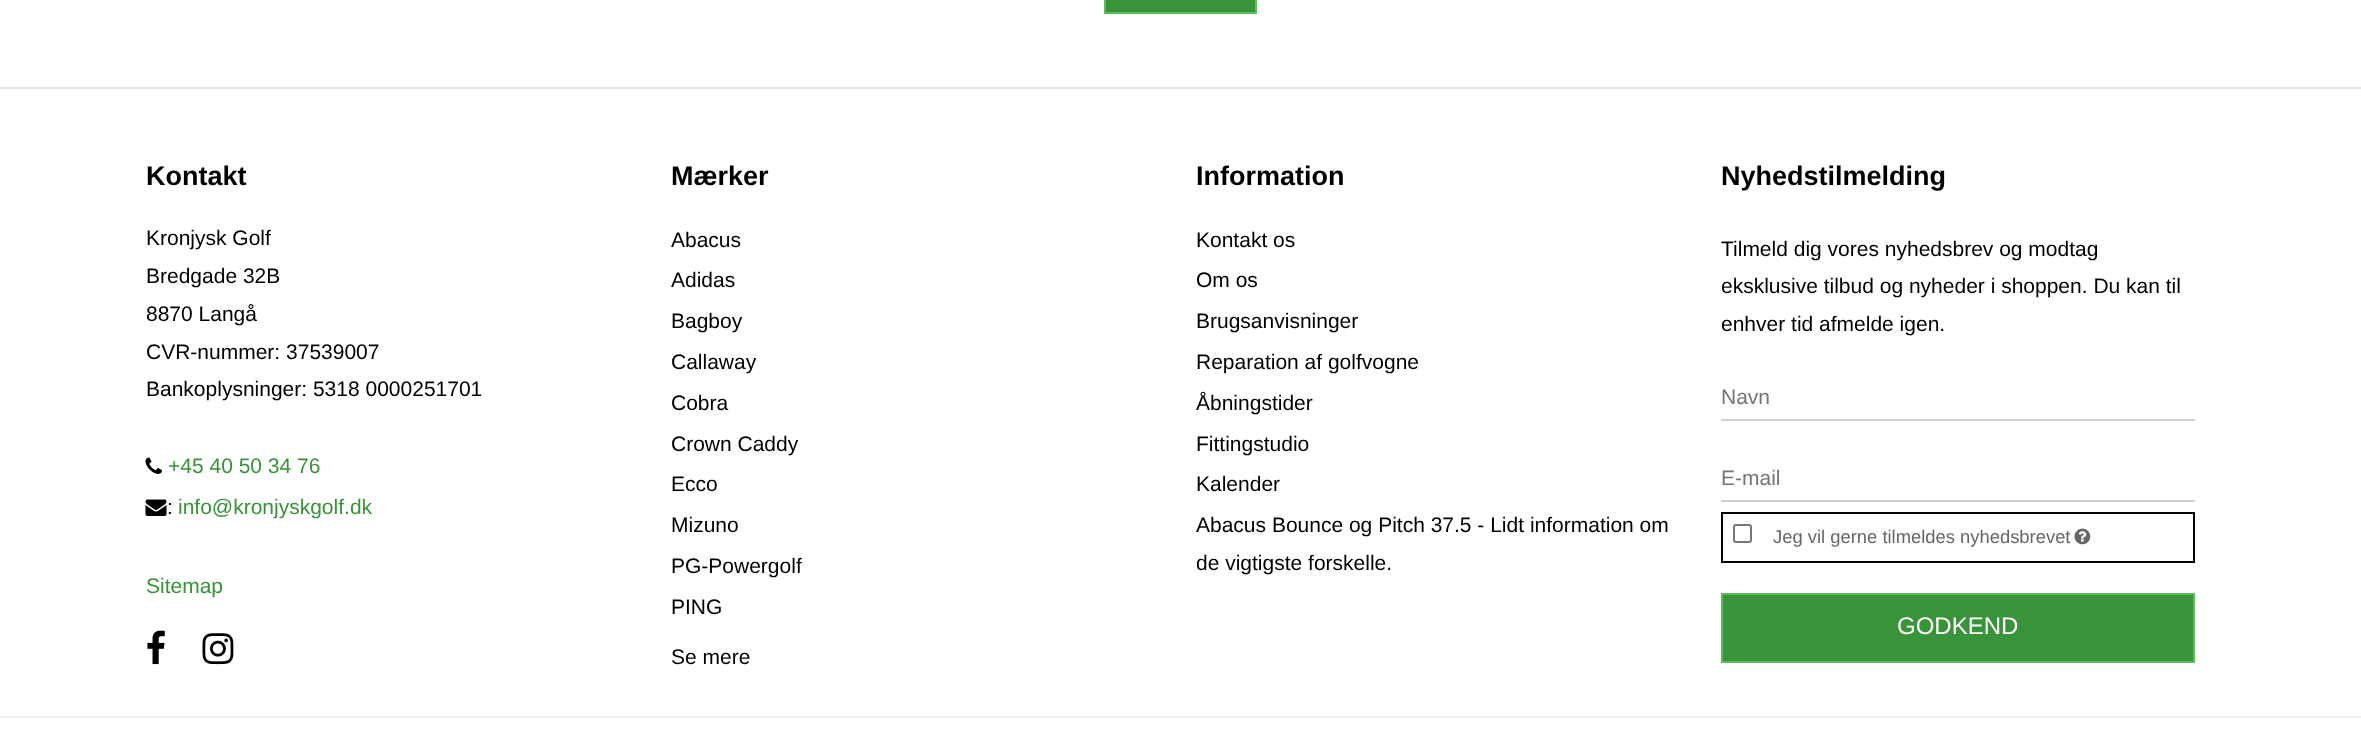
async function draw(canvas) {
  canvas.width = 2361
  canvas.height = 750
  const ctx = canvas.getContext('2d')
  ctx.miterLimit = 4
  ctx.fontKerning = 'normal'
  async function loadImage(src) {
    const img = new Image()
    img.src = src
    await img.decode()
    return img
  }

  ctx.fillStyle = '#fff'
  ctx.fillRect(0, 0, 2361, 750)
  ctx.fillStyle = '#399339'
  ctx.beginPath()
  ctx.rect(1105, -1, 151, 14)
  ctx.fill()
  ctx.strokeStyle = '#5abf5a'
  ctx.lineWidth = 2
  ctx.stroke()
  ctx.fillStyle = '#e6e6e6'
  ctx.fillRect(0, 87, 2361, 2)
  ctx.font = 'bold 27px Liberation Sans'
  ctx.fillStyle = '#000'
  ctx.fillText('Kontakt', 146, 185)
  ctx.font = '21px Liberation Sans'
  ctx.fillText('Kronjysk Golf', 146, 245)
  ctx.fillText('Bredgade 32B', 146, 283)
  ctx.fillText('8870 Langå', 146, 321)
  ctx.fillText('CVR-nummer: 37539007', 146, 359)
  ctx.fillText('Bankoplysninger: 5318 0000251701', 146, 396)
  ctx.drawImage(await loadImage('image0.png'), 145, 457, 17, 17)
  ctx.fillStyle = '#399339'
  ctx.fillText('+45 40 50 34 76', 168, 473)
  ctx.drawImage(await loadImage('image1.png'), 145, 499, 22, 17)
  ctx.fillStyle = '#000'
  ctx.fillText(':', 167, 514)
  ctx.fillStyle = '#399339'
  ctx.fillText('info@kronjyskgolf.dk', 178, 514)
  ctx.fillText('Sitemap', 146, 593)
  ctx.drawImage(await loadImage('image2.png'), 147, 630, 18, 35)
  ctx.drawImage(await loadImage('image3.png'), 202, 633, 32, 32)
  ctx.font = 'bold 27px Liberation Sans'
  ctx.fillStyle = '#000'
  ctx.fillText('Mærker', 671, 185)
  ctx.font = '21px Liberation Sans'
  ctx.fillText('Abacus', 671, 247)
  ctx.fillText('Adidas', 671, 287)
  ctx.fillText('Bagboy', 671, 328)
  ctx.fillText('Callaway', 671, 369)
  ctx.fillText('Cobra', 671, 410)
  ctx.fillText('Crown Caddy', 671, 451)
  ctx.fillText('Ecco', 671, 491)
  ctx.fillText('Mizuno', 671, 532)
  ctx.fillText('PG-Powergolf', 671, 573)
  ctx.fillText('PING', 671, 614)
  ctx.fillText('Se mere', 671, 664)
  ctx.font = 'bold 27px Liberation Sans'
  ctx.fillText('Information', 1196, 185)
  ctx.font = '21px Liberation Sans'
  ctx.fillText('Kontakt os', 1196, 247)
  ctx.fillText('Om os', 1196, 287)
  ctx.fillText('Brugsanvisninger', 1196, 328)
  ctx.fillText('Reparation af golfvogne', 1196, 369)
  ctx.fillText('Åbningstider', 1196, 410)
  ctx.fillText('Fittingstudio', 1196, 451)
  ctx.fillText('Kalender', 1196, 491)
  ctx.fillText('Abacus Bounce og Pitch 37.5 - Lidt information om', 1196, 532)
  ctx.fillText('de vigtigste forskelle.', 1196, 570)
  ctx.font = 'bold 27px Liberation Sans'
  ctx.fillText('Nyhedstilmelding', 1721, 185)
  ctx.font = '21px Liberation Sans'
  ctx.fillText('Tilmeld dig vores nyhedsbrev og modtag', 1721, 256)
  ctx.fillText('eksklusive tilbud og nyheder i shoppen. Du kan til', 1721, 293)
  ctx.fillText('enhver tid afmelde igen.', 1721, 331)
  ctx.fillStyle = '#cfcfcf'
  ctx.fillRect(1721, 419, 474, 2)
  ctx.fillStyle = '#757575'
  ctx.fillText('Navn', 1721, 404)
  ctx.fillStyle = '#cfcfcf'
  ctx.fillRect(1721, 500, 474, 2)
  ctx.fillStyle = '#757575'
  ctx.fillText('E-mail', 1721, 485)
  ctx.strokeStyle = '#000'
  ctx.strokeRect(1722, 513, 472, 49)
  ctx.beginPath()
  ctx.roundRect(1734, 525, 17, 17, 2)
  ctx.strokeStyle = '#767676'
  ctx.stroke()
  ctx.font = '18.4px Liberation Sans'
  ctx.fillStyle = '#656764'
  ctx.fillText('Jeg vil gerne tilmeldes nyhedsbrevet', 1773, 543)
  ctx.drawImage(await loadImage('image4.png'), 2074, 528, 17, 17)
  ctx.fillStyle = '#399339'
  ctx.beginPath()
  ctx.rect(1722, 594, 472, 68)
  ctx.fill()
  ctx.strokeStyle = '#5abf5a'
  ctx.stroke()
  ctx.font = '24px Liberation Sans'
  ctx.fillStyle = '#fff'
  ctx.fillText('GODKEND', 1897, 634)
  ctx.fillStyle = '#eee'
  ctx.fillRect(0, 716, 2361, 2)
}

draw(document.querySelector('canvas'))
